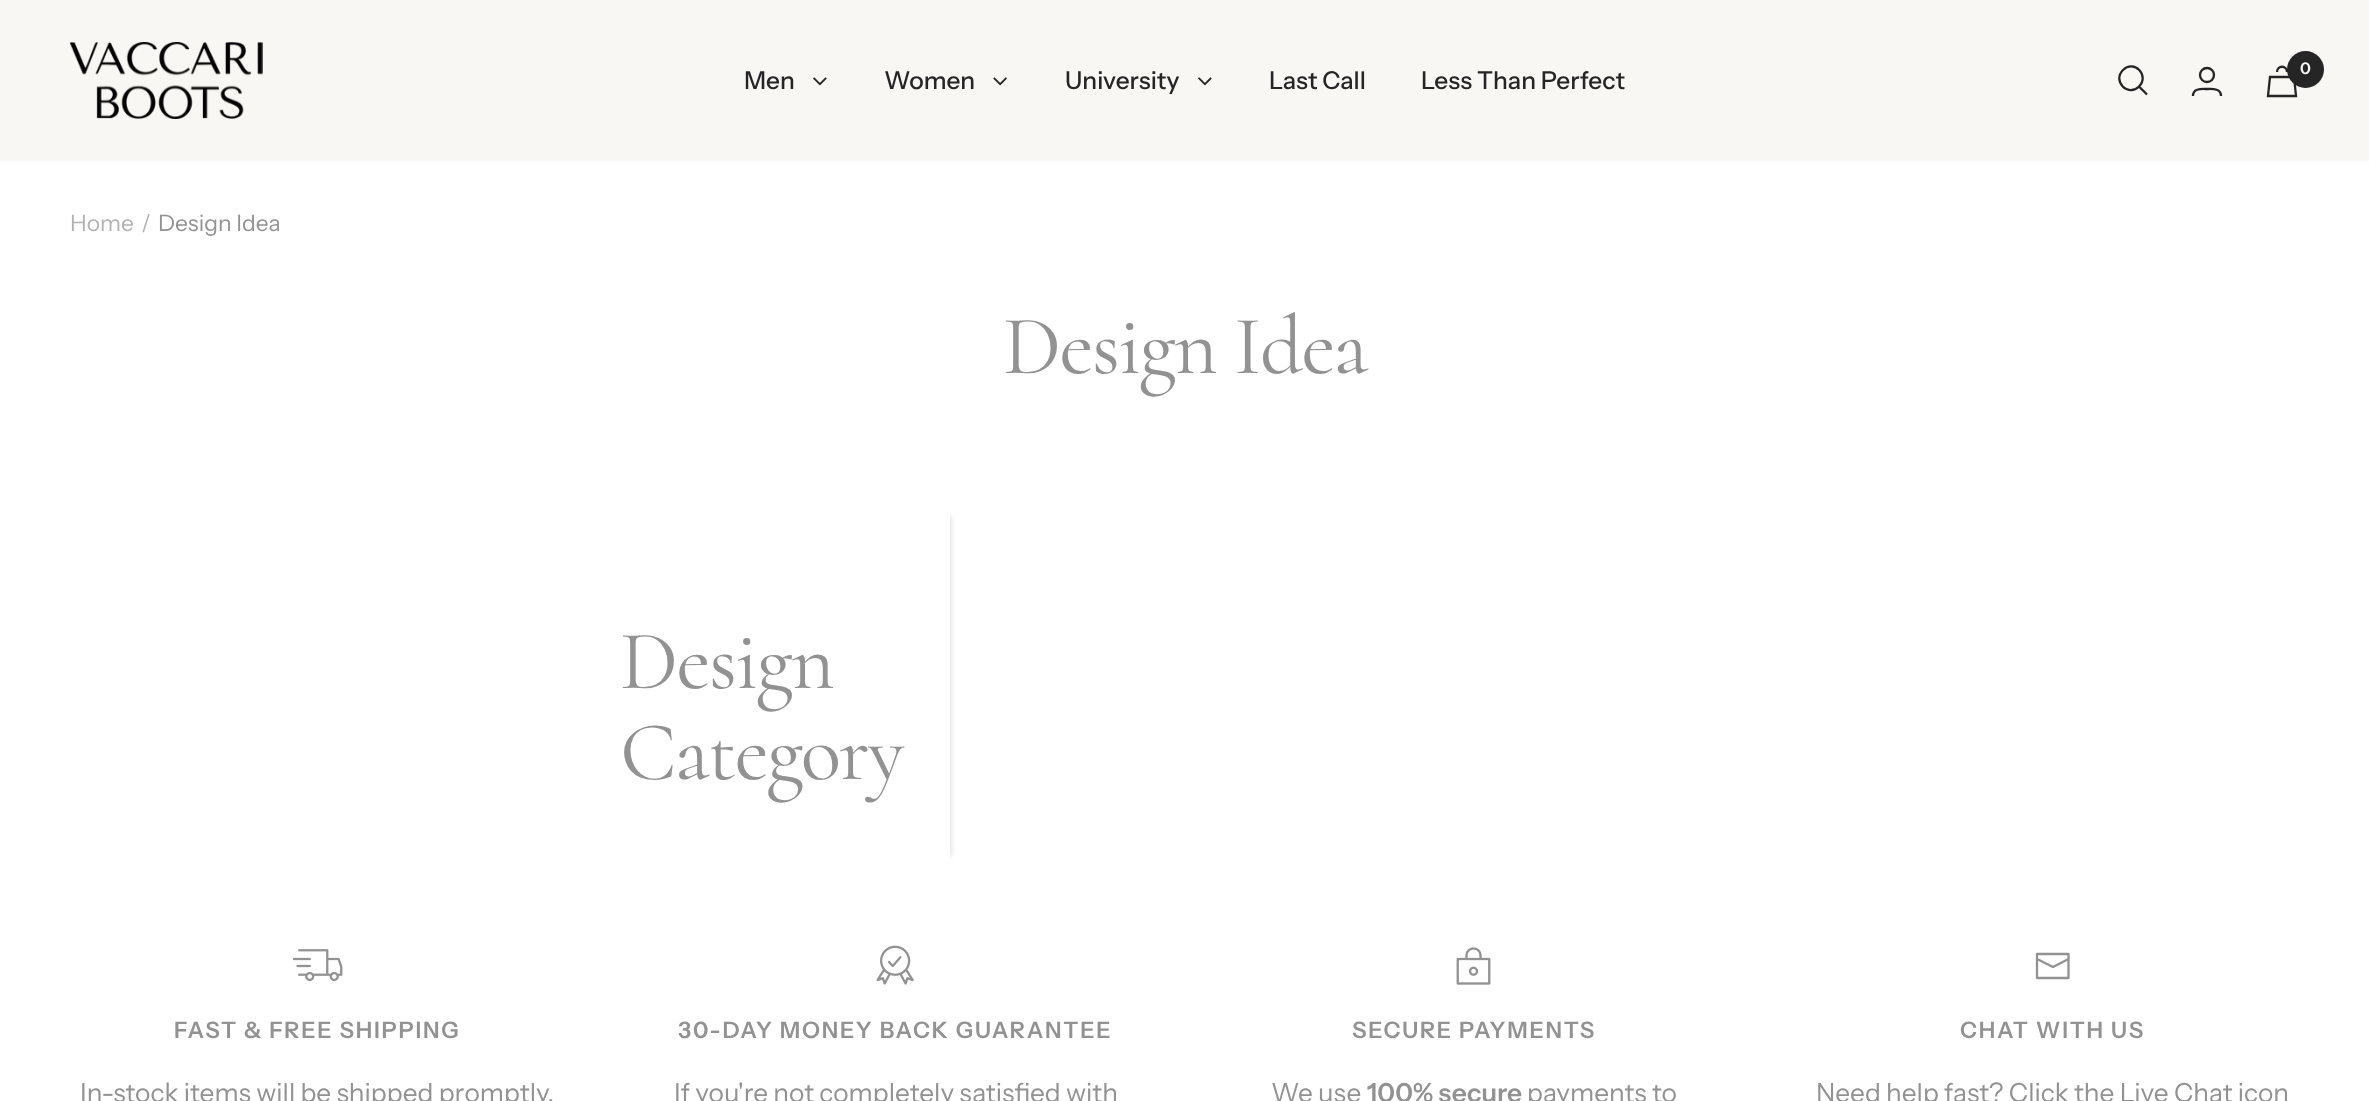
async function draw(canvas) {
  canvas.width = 2369
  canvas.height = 1101
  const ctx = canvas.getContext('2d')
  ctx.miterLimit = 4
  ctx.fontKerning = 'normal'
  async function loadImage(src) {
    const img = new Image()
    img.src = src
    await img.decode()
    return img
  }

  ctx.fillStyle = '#fff'
  ctx.fillRect(0, 0, 2369, 1101)
  ctx.fillStyle = '#f9f7f4'
  ctx.fillRect(0, 0, 2369, 161)
  ctx.drawImage(await loadImage('image0.png'), 70, 42, 193, 77)
  ctx.beginPath()
  ctx.moveTo(2139, 86.5)
  ctx.bezierCurveTo(2150, 75.5, 2134, 59, 2123, 70)
  ctx.bezierCurveTo(2112, 81, 2128, 97.5, 2139, 86.5)
  ctx.closePath()
  ctx.moveTo(2139, 86.5)
  ctx.lineTo(2147, 94.5)
  ctx.strokeStyle = '#252525'
  ctx.lineWidth = 2.3
  ctx.stroke()
  ctx.beginPath()
  ctx.arc(2207, 75, 7, 0, 2 * Math.PI)
  ctx.stroke()
  ctx.beginPath()
  ctx.moveTo(2193, 96)
  ctx.bezierCurveTo(2193, 88, 2201.5, 89, 2207, 89)
  ctx.bezierCurveTo(2212, 89, 2221, 88, 2221, 96)
  ctx.stroke()
  ctx.beginPath()
  ctx.moveTo(2270, 77)
  ctx.lineTo(2294, 77)
  ctx.lineTo(2296, 96)
  ctx.lineTo(2268, 96)
  ctx.closePath()
  ctx.moveTo(2287, 72)
  ctx.bezierCurveTo(2287, 65, 2277, 65, 2277, 72)
  ctx.stroke()
  ctx.fillStyle = '#252525'
  ctx.beginPath()
  ctx.arc(2305.5, 69.5, 18.5, 0, 2 * Math.PI)
  ctx.fill()
  ctx.font = '600 16px Instrument Sans'
  ctx.fillStyle = '#f9f7f4'
  ctx.fillText('0', 2300, 74)
  ctx.font = '500 24.5px Instrument Sans'
  ctx.fillStyle = '#252525'
  ctx.fillText('Men', 744, 89)
  ctx.drawImage(await loadImage('image1.png'), 813, 77, 14, 9)
  ctx.fillText('Women', 884, 89)
  ctx.drawImage(await loadImage('image2.png'), 993, 77, 14, 9)
  ctx.fillText('University', 1065, 89)
  ctx.drawImage(await loadImage('image1.png'), 1198, 77, 14, 9)
  ctx.fillText('Last Call', 1269, 89)
  ctx.fillText('Less Than Perfect', 1421, 89)
  ctx.font = '22.75px Instrument Sans'
  ctx.fillStyle = '#b3b3b3'
  ctx.fillText('Home', 70, 231)
  ctx.fillText('/', 141, 231)
  ctx.fillStyle = '#929292'
  ctx.fillText('Design Idea', 158, 231)
  ctx.letterSpacing = '-1.75px'
  ctx.font = '84px Cormorant'
  ctx.fillText('Design Idea', 1003, 373)
  ctx.save()
  ctx.beginPath()
  ctx.rect(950, 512, 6, 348)
  ctx.clip()
  ctx.fillStyle = '#e6e6e6'
  ctx.filter = 'blur(2px)'
  ctx.beginPath()
  ctx.rect(611, 516, 341, 340)
  ctx.fill()
  ctx.filter = 'none'
  ctx.restore()
  ctx.fillText('Design', 620, 688)
  ctx.fillText('Category', 620, 779)
  ctx.drawImage(await loadImage('image3.png'), 292, 949, 51, 33)
  ctx.letterSpacing = '1.75px'
  ctx.font = '600 22.75px Instrument Sans'
  ctx.fillText('FAST & FREE SHIPPING', 174, 1038)
  ctx.letterSpacing = '0px'
  ctx.font = '26.25px Instrument Sans'
  ctx.fillText('In-stock items will be shipped promptly,', 80, 1102)
  ctx.drawImage(await loadImage('image4.png'), 876, 945, 38, 40)
  ctx.letterSpacing = '1.75px'
  ctx.font = '600 22.75px Instrument Sans'
  ctx.fillText('30-DAY MONEY BACK GUARANTEE', 678, 1038)
  ctx.letterSpacing = '0px'
  ctx.font = '26.25px Instrument Sans'
  ctx.fillText('If you\'re not completely satisfied with', 674, 1102)
  ctx.drawImage(await loadImage('image5.png'), 1456, 947, 35, 38)
  ctx.letterSpacing = '1.75px'
  ctx.font = '600 22.75px Instrument Sans'
  ctx.fillText('SECURE PAYMENTS', 1352, 1038)
  ctx.letterSpacing = '0px'
  ctx.font = '26.25px Instrument Sans'
  ctx.fillText('We use', 1271, 1102)
  ctx.font = '600 26.25px Instrument Sans'
  ctx.fillText('100% secure', 1367, 1102)
  ctx.font = '26.25px Instrument Sans'
  ctx.fillText('payments to', 1527, 1102)
  ctx.beginPath()
  ctx.moveTo(2068.5, 959)
  ctx.lineTo(2068.5, 954)
  ctx.lineTo(2037, 954)
  ctx.lineTo(2037, 959)
  ctx.moveTo(2068.5, 959)
  ctx.lineTo(2068.5, 978)
  ctx.lineTo(2037, 978)
  ctx.lineTo(2037, 959)
  ctx.moveTo(2068.5, 959)
  ctx.lineTo(2053, 967)
  ctx.lineTo(2037, 959)
  ctx.strokeStyle = '#929292'
  ctx.lineCap = 'round'
  ctx.lineJoin = 'round'
  ctx.stroke()
  ctx.letterSpacing = '1.75px'
  ctx.font = '600 22.75px Instrument Sans'
  ctx.fillText('CHAT WITH US', 1960, 1038)
  ctx.letterSpacing = '0px'
  ctx.font = '26.25px Instrument Sans'
  ctx.fillText('Need help fast? Click the Live Chat icon', 1816, 1102)
}

draw(document.querySelector('canvas'))
